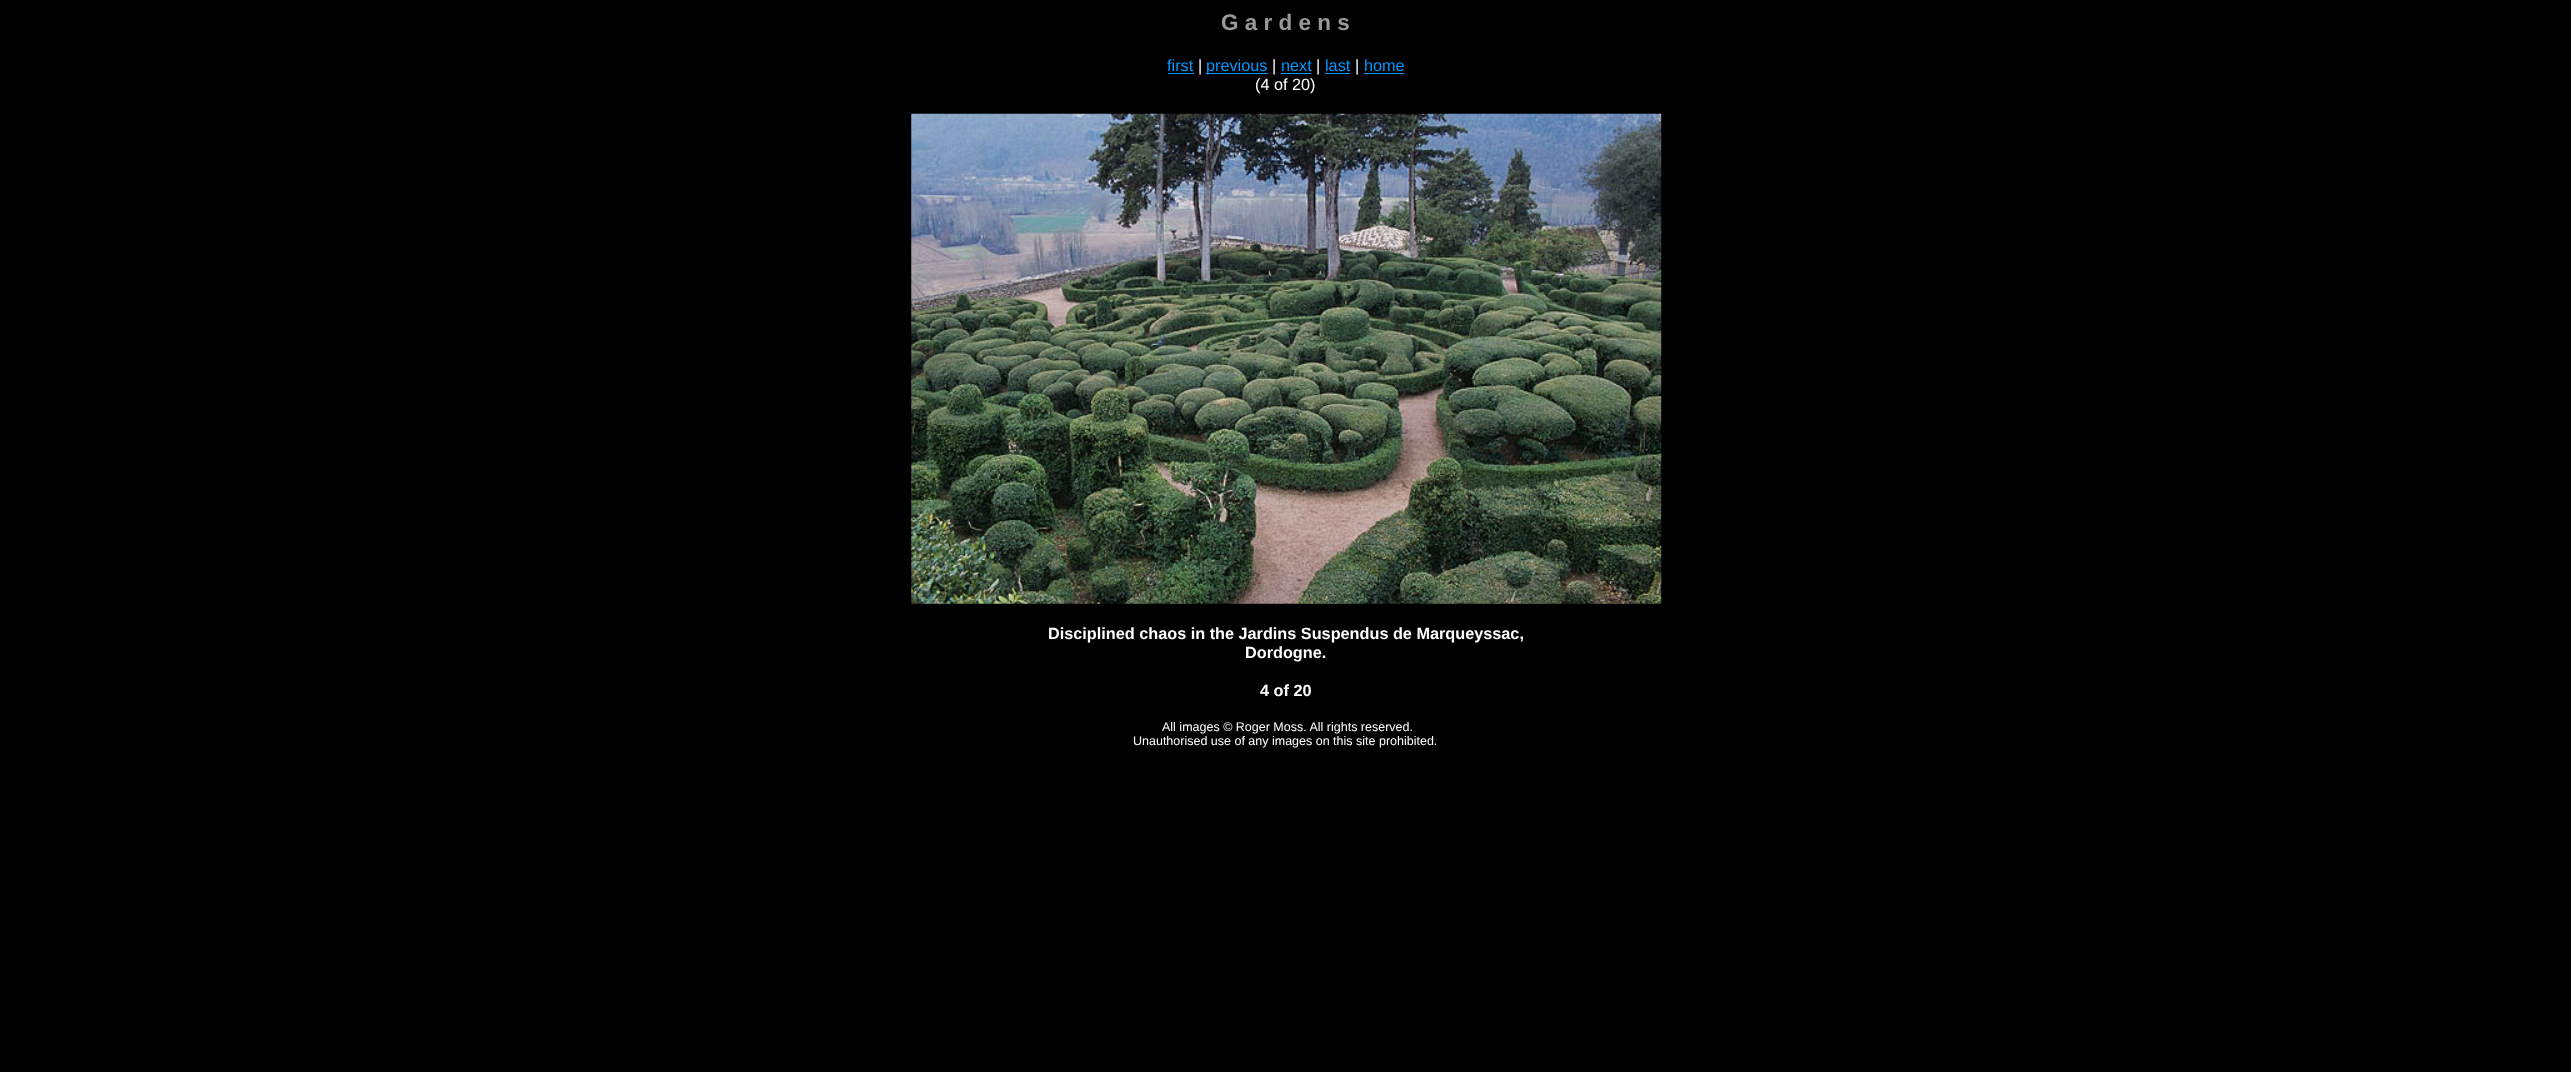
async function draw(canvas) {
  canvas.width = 2571
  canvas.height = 1072
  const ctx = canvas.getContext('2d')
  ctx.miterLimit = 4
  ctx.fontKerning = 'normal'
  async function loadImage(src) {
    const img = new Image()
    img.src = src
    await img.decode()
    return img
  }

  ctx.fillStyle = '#000'
  ctx.fillRect(0, 0, 2571, 1072)
  ctx.font = 'bold 22.5px Liberation Sans'
  ctx.fillStyle = '#999'
  ctx.fillText('G a r d e n s', 1221, 30)
  ctx.font = '16.25px Liberation Sans'
  ctx.fillStyle = '#09f'
  ctx.fillText('first', 1167, 71)
  ctx.fillRect(1168, 73, 26, 1)
  ctx.fillStyle = '#fff'
  ctx.fillText('|', 1198, 71)
  ctx.fillStyle = '#09f'
  ctx.fillRect(1206, 73, 62, 1)
  ctx.fillText('previous', 1206, 71)
  ctx.fillStyle = '#fff'
  ctx.fillText('|', 1272, 71)
  ctx.fillStyle = '#09f'
  ctx.fillText('next', 1281, 71)
  ctx.fillRect(1281, 73, 30, 1)
  ctx.fillStyle = '#fff'
  ctx.fillText('|', 1316, 71)
  ctx.fillStyle = '#09f'
  ctx.fillText('last', 1325, 71)
  ctx.fillRect(1325, 73, 25, 1)
  ctx.fillStyle = '#fff'
  ctx.fillText('|', 1355, 71)
  ctx.fillStyle = '#09f'
  ctx.fillText('home', 1364, 71)
  ctx.fillRect(1364, 73, 40, 1)
  ctx.fillStyle = '#fff'
  ctx.fillText('(4 of 20)', 1255, 90)
  ctx.drawImage(await loadImage('image0.png'), 911, 113, 751, 491)
  ctx.font = 'bold 16.25px Liberation Sans'
  ctx.fillText('Disciplined chaos in the Jardins Suspendus de Marqueyssac,', 1048, 639)
  ctx.fillText('Dordogne.', 1245, 658)
  ctx.fillText('4 of 20', 1260, 696)
  ctx.font = '12.5px Liberation Sans'
  ctx.fillText('All images © Roger Moss. All rights reserved.', 1162, 731)
  ctx.fillText('Unauthorised use of any images on this site prohibited.', 1133, 745)
}

draw(document.querySelector('canvas'))
